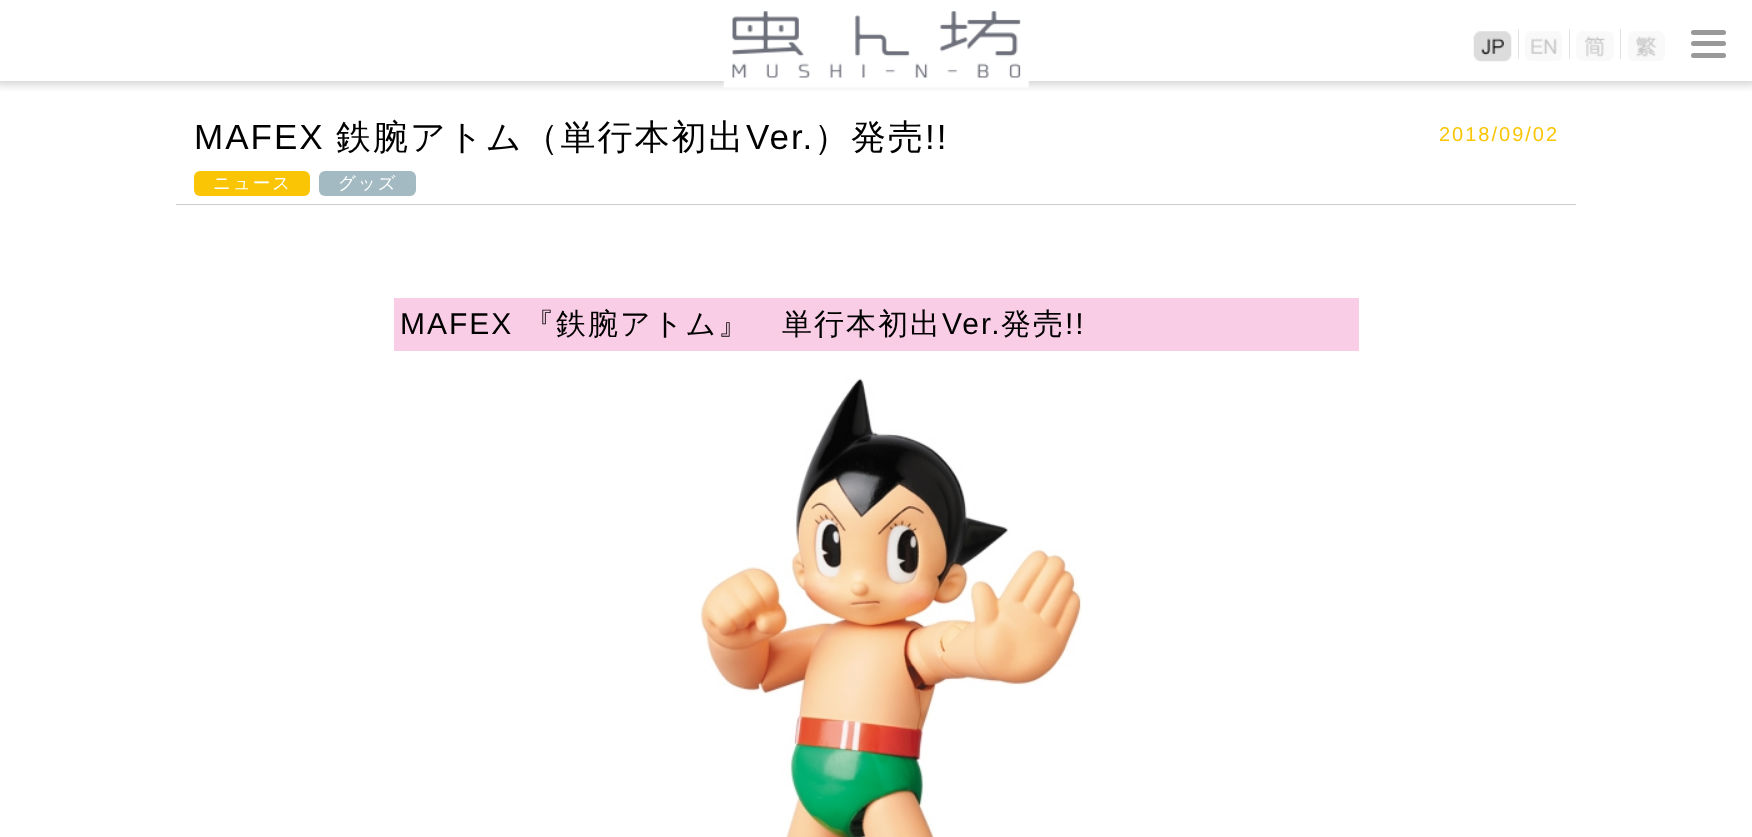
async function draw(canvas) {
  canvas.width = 1752
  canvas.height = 837
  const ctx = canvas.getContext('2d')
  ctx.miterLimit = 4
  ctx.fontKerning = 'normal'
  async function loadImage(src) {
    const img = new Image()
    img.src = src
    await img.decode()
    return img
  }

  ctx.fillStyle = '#fff'
  ctx.fillRect(0, 0, 1752, 837)
  ctx.save()
  ctx.beginPath()
  ctx.rect(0, 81, 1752, 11)
  ctx.clip()
  ctx.fillStyle = '#96969666'
  ctx.filter = 'blur(4px)'
  ctx.beginPath()
  ctx.rect(-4, -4, 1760, 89)
  ctx.fill()
  ctx.filter = 'none'
  ctx.restore()
  ctx.drawImage(await loadImage('image0.png'), 723, 11, 306, 77)
  ctx.drawImage(await loadImage('image1.png'), 1473, 31, 39, 31)
  ctx.fillStyle = '#e2e2e2'
  ctx.fillRect(1518, 29, 1, 30)
  ctx.drawImage(await loadImage('image2.png'), 1525, 31, 37, 30)
  ctx.fillRect(1569, 29, 1, 30)
  ctx.drawImage(await loadImage('image3.png'), 1576, 31, 38, 30)
  ctx.fillRect(1620, 29, 1, 30)
  ctx.drawImage(await loadImage('image4.png'), 1628, 31, 37, 30)
  ctx.fillStyle = '#999'
  ctx.beginPath()
  ctx.roundRect(1691, 41, 35, 5, 2.5)
  ctx.fill()
  ctx.beginPath()
  ctx.roundRect(1691, 30, 35, 5, 2.5)
  ctx.fill()
  ctx.beginPath()
  ctx.roundRect(1691, 53, 35, 5, 2.5)
  ctx.fill()
  ctx.fillStyle = '#ccc'
  ctx.fillRect(176, 204, 1400, 1)
  ctx.letterSpacing = '2px'
  ctx.font = '35px Liberation Sans'
  ctx.fillStyle = '#000'
  ctx.fillText('MAFEX', 194, 149)
  ctx.font = '500 35px WenQuanYi Zen Hei'
  ctx.fillText('鉄腕アトム（単行本初出', 336, 149)
  ctx.font = '35px Liberation Sans'
  ctx.fillText('Ver.', 746, 149)
  ctx.font = '500 35px WenQuanYi Zen Hei'
  ctx.fillText('）発売', 814, 149)
  ctx.font = '35px Liberation Sans'
  ctx.fillText('!!', 925, 149)
  ctx.fillStyle = '#fac504'
  ctx.beginPath()
  ctx.roundRect(194, 171, 116, 25, 6)
  ctx.fill()
  ctx.font = '500 17.5px WenQuanYi Zen Hei'
  ctx.fillStyle = '#fff'
  ctx.fillText('ニュース', 213, 189)
  ctx.fillStyle = '#a3bac3'
  ctx.beginPath()
  ctx.roundRect(319, 171, 97, 25, 6)
  ctx.fill()
  ctx.fillStyle = '#fff'
  ctx.fillText('グッズ', 338, 189)
  ctx.font = '20px Liberation Sans'
  ctx.fillStyle = '#fac504'
  ctx.fillText('2018/09/02', 1439, 141)
  ctx.fillStyle = '#facde6'
  ctx.fillRect(394, 298, 965, 53)
  ctx.font = '30px Liberation Sans'
  ctx.fillStyle = '#000'
  ctx.fillText('MAFEX', 400, 334)
  ctx.font = '500 30px WenQuanYi Zen Hei'
  ctx.fillText('『鉄腕アトム』　単行本初出', 524, 334)
  ctx.font = '30px Liberation Sans'
  ctx.fillText('Ver.', 942, 334)
  ctx.font = '500 30px WenQuanYi Zen Hei'
  ctx.fillText('発売', 1001, 334)
  ctx.font = '30px Liberation Sans'
  ctx.fillText('!!', 1065, 334)
  ctx.drawImage(await loadImage('image5.png'), 699, 378, 383, 459)
}

draw(document.querySelector('canvas'))
